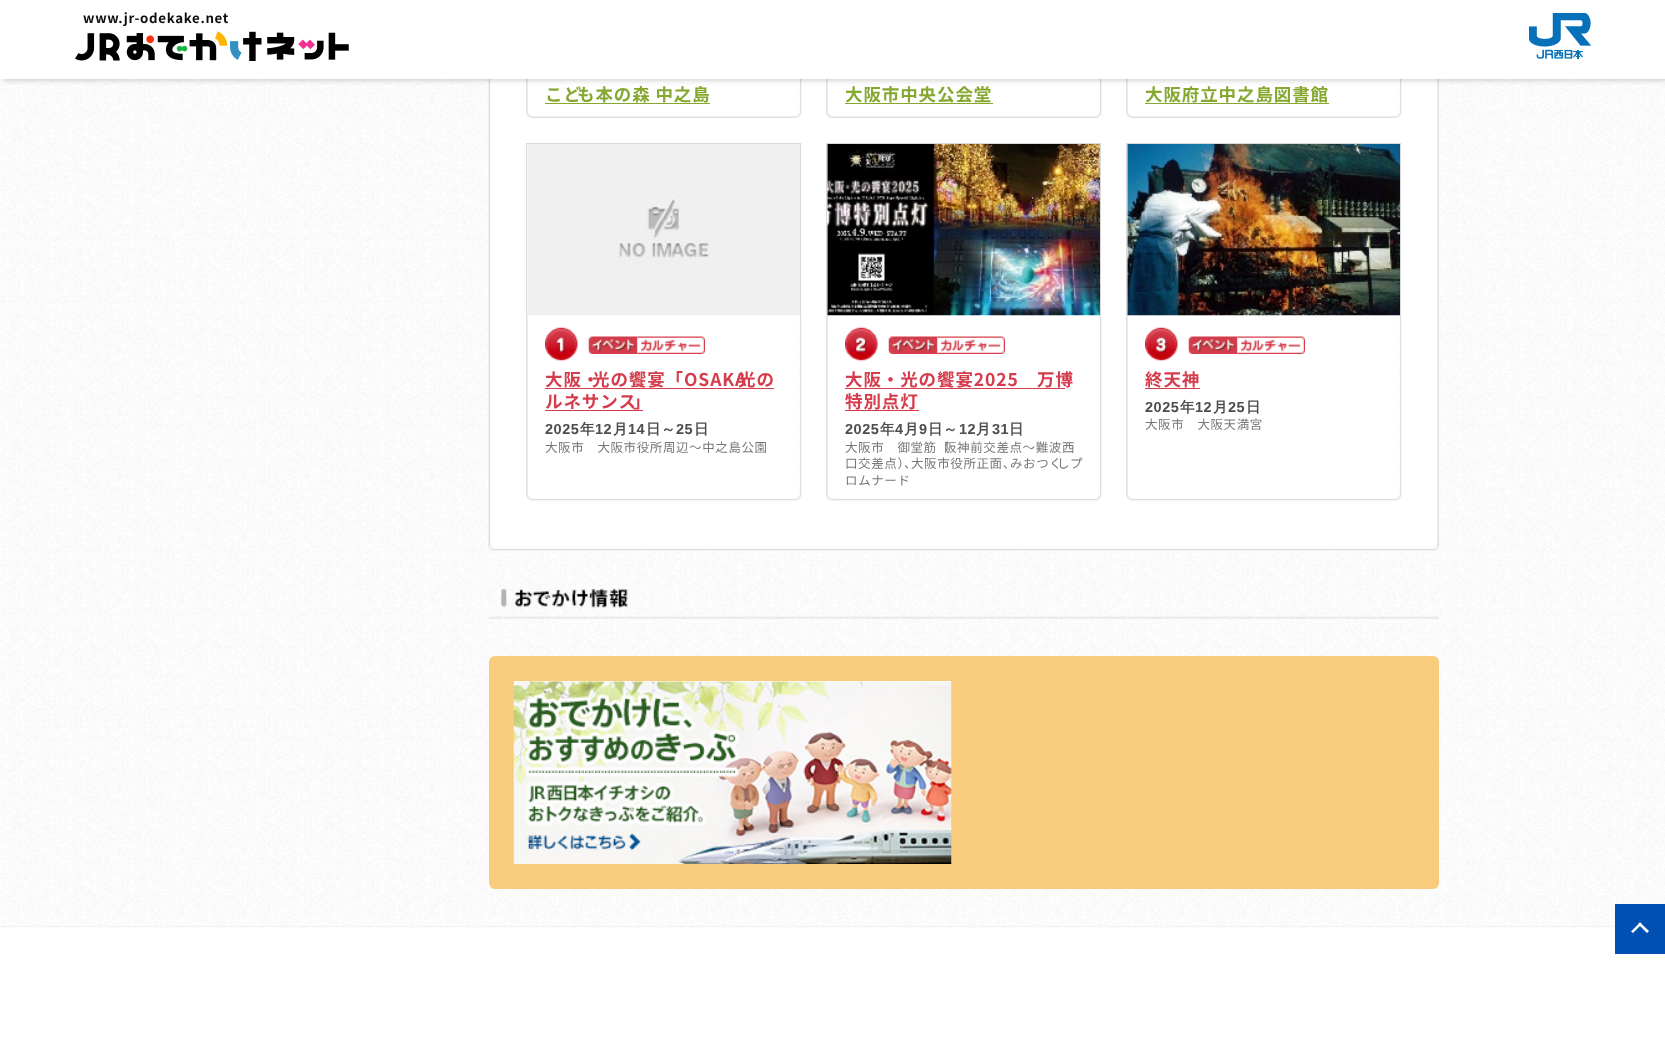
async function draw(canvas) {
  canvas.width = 1665
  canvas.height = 1053
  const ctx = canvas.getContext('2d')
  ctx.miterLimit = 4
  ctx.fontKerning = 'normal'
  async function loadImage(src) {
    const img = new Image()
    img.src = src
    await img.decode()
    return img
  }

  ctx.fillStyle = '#fff'
  ctx.fillRect(0, 0, 1665, 1053)
  ctx.drawImage(await loadImage('image2.png'), 0, 79, 1665, 849)
  ctx.drawImage(await loadImage('image3.png'), 488, 79, 951, 472)
  ctx.drawImage(await loadImage('image4.png'), 526, 79, 276, 39)
  ctx.drawImage(await loadImage('image5.png'), 826, 79, 276, 39)
  ctx.drawImage(await loadImage('image6.png'), 1126, 79, 276, 39)
  ctx.save()
  ctx.beginPath()
  ctx.moveTo(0, 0)
  ctx.lineTo(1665, 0)
  ctx.lineTo(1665, 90)
  ctx.lineTo(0, 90)
  ctx.closePath()
  ctx.moveTo(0, 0)
  ctx.lineTo(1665, 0)
  ctx.lineTo(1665, 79)
  ctx.lineTo(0, 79)
  ctx.closePath()
  ctx.clip('evenodd')
  ctx.fillStyle = '#00000029'
  ctx.filter = 'blur(2.5px)'
  ctx.beginPath()
  ctx.rect(3, 3, 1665, 78)
  ctx.fill()
  ctx.filter = 'none'
  ctx.restore()
  ctx.letterSpacing = '0.7px'
  ctx.font = 'bold 13.25px Noto Sans JP'
  ctx.fillStyle = '#0d0d0d'
  ctx.fillText('www.jr-odekake.net', 83, 23)
  ctx.drawImage(await loadImage('image0.png'), 75, 31, 274, 30)
  ctx.drawImage(await loadImage('image1.png'), 1529, 13, 62, 46)
  ctx.fillStyle = '#f3f3f3'
  ctx.fillRect(0, 926, 1615, 1)
  ctx.letterSpacing = '0.9px'
  ctx.font = 'bold 17.5px Noto Sans JP'
  ctx.fillStyle = '#86a831'
  ctx.fillText('こど', 545, 101)
  ctx.fillText('も本の森 中之島', 577, 101)
  ctx.fillRect(545, 103, 165, 1)
  ctx.fillText('大阪市中央公会堂', 845, 101)
  ctx.fillRect(845, 103, 148, 1)
  ctx.fillText('大阪府立中之島図書館', 1145, 101)
  ctx.fillRect(1145, 103, 184, 1)
  ctx.fillStyle = '#d9d9d9'
  ctx.fillRect(526, 143, 275, 1)
  ctx.fillRect(526, 143, 1, 172)
  ctx.drawImage(await loadImage('image8.png'), 526, 315, 276, 186)
  ctx.drawImage(await loadImage('image7.png'), 527, 144, 273, 172)
  ctx.fillRect(800, 143, 1, 172)
  ctx.drawImage(await loadImage('image9.png'), 545, 327, 33, 34)
  ctx.drawImage(await loadImage('image10.png'), 588, 336, 50, 18)
  ctx.drawImage(await loadImage('image11.png'), 637, 336, 68, 18)
  ctx.fillStyle = '#d53d4c'
  ctx.fillText('大阪・', 545, 386)
  ctx.fillText('光の饗宴「OSAKA', 592, 386)
  ctx.fillText('光の', 738, 386)
  ctx.fillRect(545, 388, 229, 1)
  ctx.fillText('ルネサンス', 545, 408)
  ctx.fillText('」', 633, 408)
  ctx.fillRect(545, 410, 98, 1)
  ctx.letterSpacing = '0.5px'
  ctx.font = 'bold 14.5px Liberation Sans'
  ctx.fillStyle = '#4d4d4d'
  ctx.fillText('2025', 545, 434)
  ctx.font = 'bold 14.5px WenQuanYi Zen Hei'
  ctx.fillText('年', 580, 434)
  ctx.font = 'bold 14.5px Liberation Sans'
  ctx.fillText('12', 595, 434)
  ctx.font = 'bold 14.5px WenQuanYi Zen Hei'
  ctx.fillText('月', 613, 434)
  ctx.font = 'bold 14.5px Liberation Sans'
  ctx.fillText('14', 628, 434)
  ctx.font = 'bold 14.5px WenQuanYi Zen Hei'
  ctx.fillText('日～', 646, 434)
  ctx.font = 'bold 14.5px Liberation Sans'
  ctx.fillText('25', 676, 434)
  ctx.font = 'bold 14.5px WenQuanYi Zen Hei'
  ctx.fillText('日', 694, 434)
  ctx.letterSpacing = '0.6px'
  ctx.font = '12.5px Noto Sans JP'
  ctx.fillStyle = '#777'
  ctx.fillText('大阪市　大阪市役所周辺～中之島公園', 545, 452)
  ctx.fillStyle = '#d9d9d9'
  ctx.fillRect(826, 143, 275, 1)
  ctx.fillRect(826, 143, 1, 172)
  ctx.drawImage(await loadImage('image13.png'), 826, 315, 276, 186)
  ctx.drawImage(await loadImage('image12.png'), 827, 144, 273, 172)
  ctx.fillRect(1100, 143, 1, 172)
  ctx.drawImage(await loadImage('image14.png'), 845, 327, 33, 34)
  ctx.drawImage(await loadImage('image15.png'), 888, 336, 50, 18)
  ctx.drawImage(await loadImage('image16.png'), 937, 336, 68, 18)
  ctx.letterSpacing = '0.9px'
  ctx.font = 'bold 17.5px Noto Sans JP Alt'
  ctx.fillStyle = '#d53d4c'
  ctx.fillText('大阪・光の饗宴2025　万博', 845, 386)
  ctx.fillRect(845, 388, 220, 1)
  ctx.font = 'bold 17.5px Noto Sans JP'
  ctx.fillText('特別点灯', 845, 408)
  ctx.fillRect(845, 410, 74, 1)
  ctx.letterSpacing = '0.5px'
  ctx.font = 'bold 14.5px Liberation Sans'
  ctx.fillStyle = '#4d4d4d'
  ctx.fillText('2025', 845, 434)
  ctx.font = 'bold 14.5px WenQuanYi Zen Hei'
  ctx.fillText('年', 880, 434)
  ctx.font = 'bold 14.5px Liberation Sans'
  ctx.fillText('4', 895, 434)
  ctx.font = 'bold 14.5px WenQuanYi Zen Hei'
  ctx.fillText('月', 904, 434)
  ctx.font = 'bold 14.5px Liberation Sans'
  ctx.fillText('9', 919, 434)
  ctx.font = 'bold 14.5px WenQuanYi Zen Hei'
  ctx.fillText('日～', 928, 434)
  ctx.font = 'bold 14.5px Liberation Sans'
  ctx.fillText('12', 959, 434)
  ctx.font = 'bold 14.5px WenQuanYi Zen Hei'
  ctx.fillText('月', 976, 434)
  ctx.font = 'bold 14.5px Liberation Sans'
  ctx.fillText('31', 992, 434)
  ctx.font = 'bold 14.5px WenQuanYi Zen Hei'
  ctx.fillText('日', 1009, 434)
  ctx.letterSpacing = '0.6px'
  ctx.font = '12.5px Noto Sans JP'
  ctx.fillStyle = '#777'
  ctx.fillText('大阪市　御堂筋（', 845, 452)
  ctx.fillText('阪神前交差点～難波西', 944, 452)
  ctx.fillText('口交差点）', 845, 468)
  ctx.fillText('、', 904, 468)
  ctx.fillText('大阪市役所正面、', 911, 468)
  ctx.fillText('みおつく', 1010, 468)
  ctx.fillText('しプ', 1057, 468)
  ctx.fillText('ロムナード', 845, 485)
  ctx.fillStyle = '#d9d9d9'
  ctx.fillRect(1126, 143, 275, 1)
  ctx.fillRect(1126, 143, 1, 172)
  ctx.drawImage(await loadImage('image8.png'), 1126, 315, 276, 186)
  ctx.drawImage(await loadImage('image17.png'), 1127, 144, 273, 172)
  ctx.fillRect(1400, 143, 1, 172)
  ctx.drawImage(await loadImage('image18.png'), 1145, 327, 33, 34)
  ctx.drawImage(await loadImage('image10.png'), 1188, 336, 50, 18)
  ctx.drawImage(await loadImage('image19.png'), 1237, 336, 68, 18)
  ctx.letterSpacing = '0.9px'
  ctx.font = 'bold 17.5px Noto Sans JP'
  ctx.fillStyle = '#d53d4c'
  ctx.fillText('終天神', 1145, 386)
  ctx.fillRect(1145, 388, 55, 1)
  ctx.letterSpacing = '0.5px'
  ctx.font = 'bold 14.5px Liberation Sans'
  ctx.fillStyle = '#4d4d4d'
  ctx.fillText('2025', 1145, 412)
  ctx.font = 'bold 14.5px WenQuanYi Zen Hei'
  ctx.fillText('年', 1180, 412)
  ctx.font = 'bold 14.5px Liberation Sans'
  ctx.fillText('12', 1195, 412)
  ctx.font = 'bold 14.5px WenQuanYi Zen Hei'
  ctx.fillText('月', 1213, 412)
  ctx.font = 'bold 14.5px Liberation Sans'
  ctx.fillText('25', 1228, 412)
  ctx.font = 'bold 14.5px WenQuanYi Zen Hei'
  ctx.fillText('日', 1246, 412)
  ctx.letterSpacing = '0.6px'
  ctx.font = '12.5px Noto Sans JP'
  ctx.fillStyle = '#777'
  ctx.fillText('大阪市　大阪天満宮', 1145, 429)
  ctx.drawImage(await loadImage('image20.png'), 488, 538, 951, 13)
  ctx.drawImage(await loadImage('image21.png'), 488, 588, 951, 31)
  ctx.fillStyle = '#f9cb7d'
  ctx.beginPath()
  ctx.roundRect(489, 656, 950, 233, 6)
  ctx.fill()
  ctx.fillStyle = '#fff'
  ctx.fillRect(514, 681, 437, 1)
  ctx.drawImage(await loadImage('image22.png'), 513, 681, 439, 183)
  ctx.fillStyle = '#004fb2'
  ctx.fillRect(1615, 904, 50, 50)
  ctx.fillStyle = '#fff'
  ctx.beginPath()
  ctx.moveTo(1631, 931.5)
  ctx.lineTo(1640, 922.5)
  ctx.lineTo(1642, 924)
  ctx.lineTo(1633, 933)
  ctx.closePath()
  ctx.fill()
  ctx.beginPath()
  ctx.moveTo(1638, 924)
  ctx.lineTo(1640, 922.5)
  ctx.lineTo(1649, 931)
  ctx.lineTo(1647, 933)
  ctx.closePath()
  ctx.fill()
}

draw(document.querySelector('canvas'))
